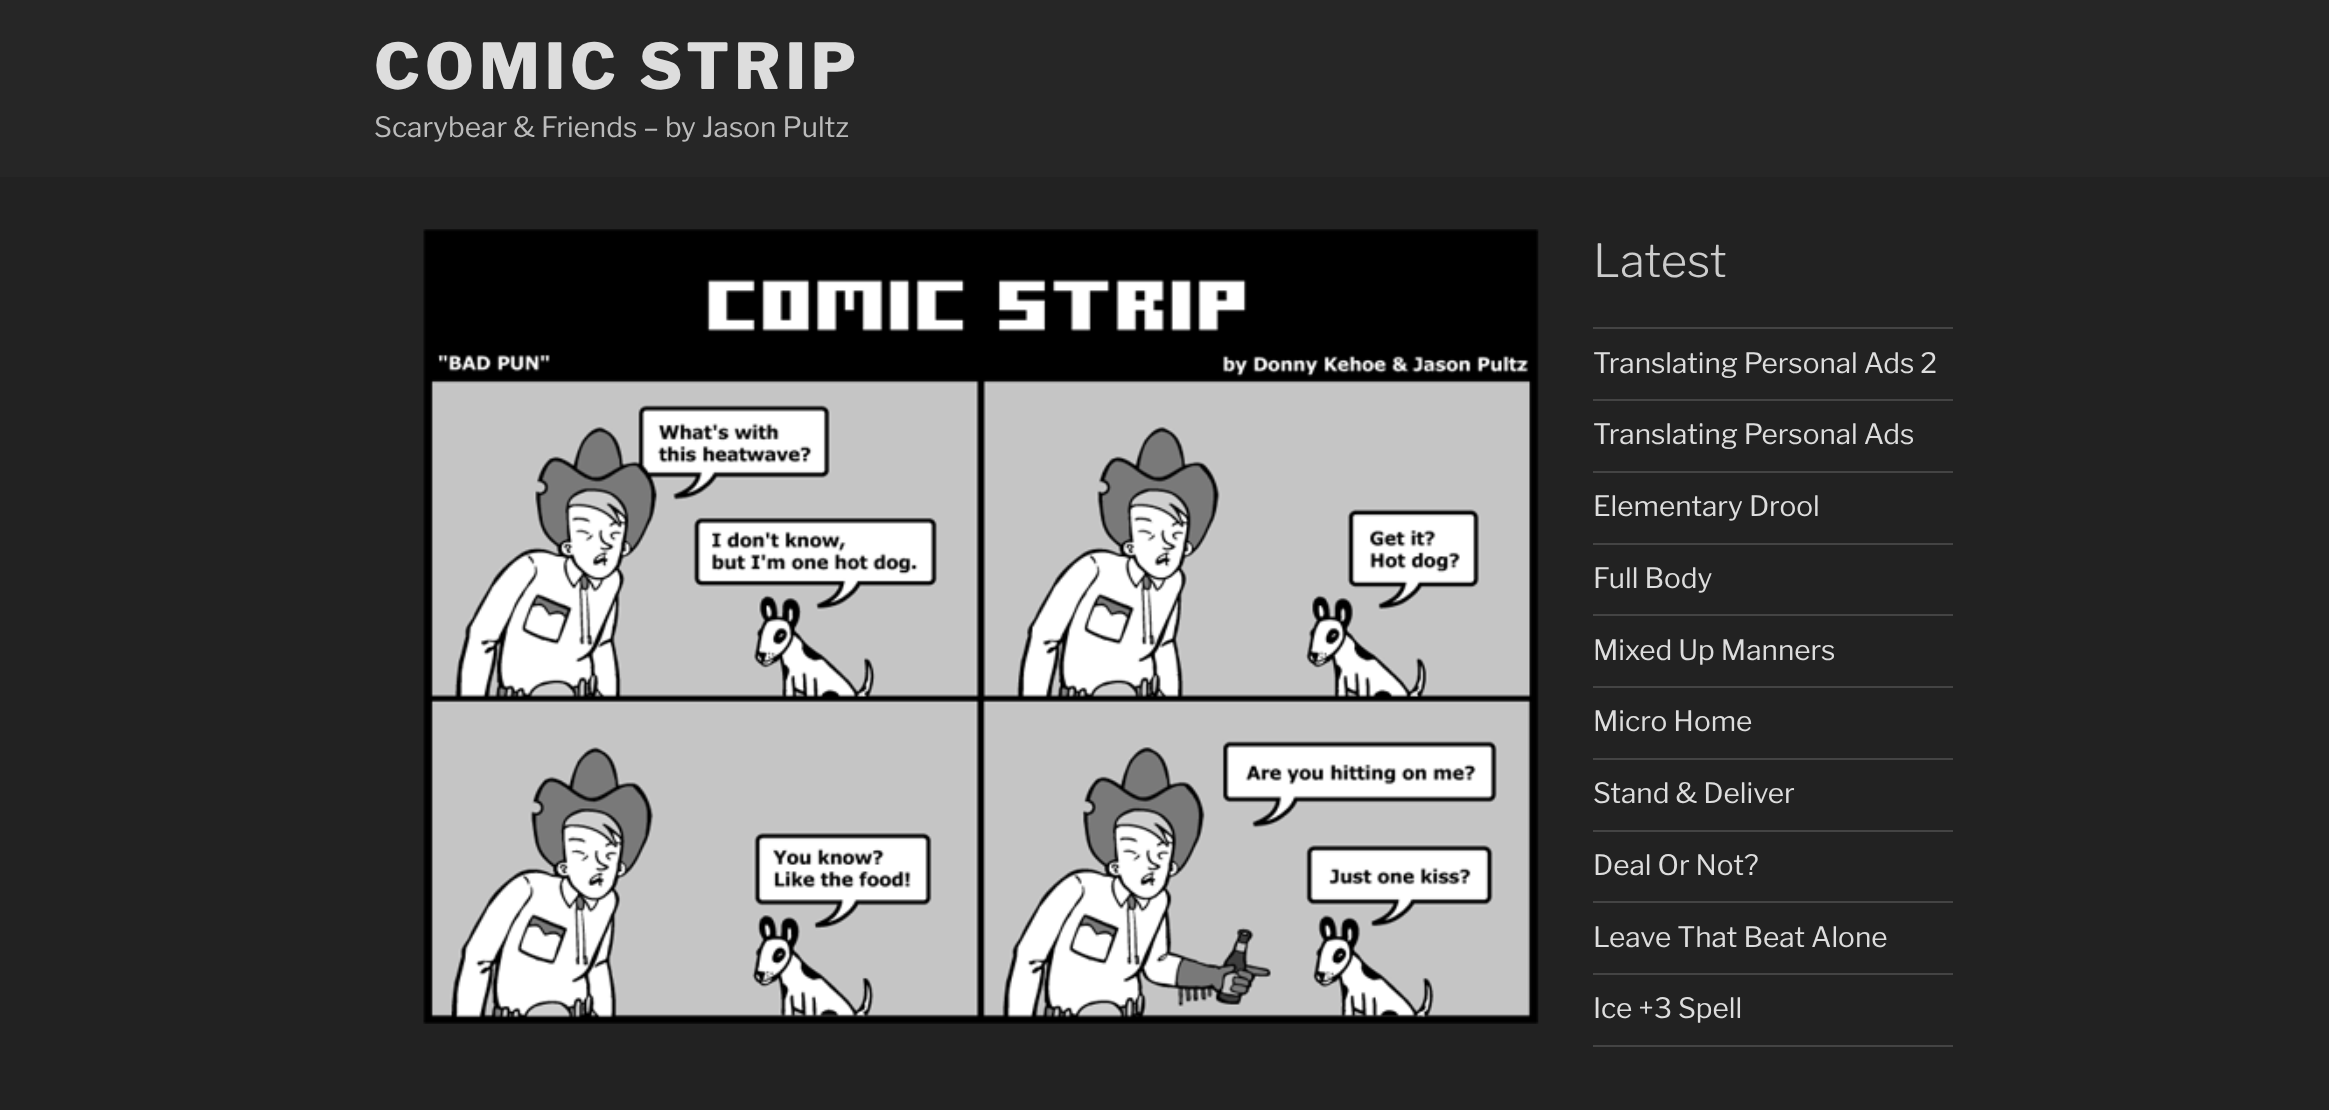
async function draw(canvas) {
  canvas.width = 2329
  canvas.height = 1110
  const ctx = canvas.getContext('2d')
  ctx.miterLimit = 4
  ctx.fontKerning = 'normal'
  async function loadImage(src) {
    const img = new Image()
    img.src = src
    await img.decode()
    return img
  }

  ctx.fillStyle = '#222'
  ctx.fillRect(0, 0, 2329, 1110)
  ctx.fillStyle = '#262626'
  ctx.fillRect(0, 0, 2329, 177)
  ctx.letterSpacing = '5px'
  ctx.font = '100 63px "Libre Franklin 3"'
  ctx.fillStyle = '#ddd'
  ctx.fillText('COMIC STRIP', 374, 89)
  ctx.letterSpacing = '0px'
  ctx.font = '100 28px "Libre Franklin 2"'
  ctx.fillStyle = '#bbb'
  ctx.fillText('Scarybear & Friends – by Jason Pultz', 374, 137)
  ctx.drawImage(await loadImage('image0.png'), 423, 229, 1116, 795)
  ctx.font = '100 45.5px Libre Franklin'
  ctx.fillStyle = '#ccc'
  ctx.fillText('Latest', 1593, 277)
  ctx.fillStyle = '#444'
  ctx.fillRect(1593, 327, 360, 2)
  ctx.fillRect(1593, 399, 360, 2)
  ctx.font = '100 28px "Libre Franklin 2"'
  ctx.fillStyle = '#ddd'
  ctx.fillText('Translating Personal Ads 2', 1593, 373)
  ctx.fillStyle = '#444'
  ctx.fillRect(1593, 471, 360, 2)
  ctx.fillStyle = '#ddd'
  ctx.fillText('Translating Personal Ads', 1593, 444)
  ctx.fillStyle = '#444'
  ctx.fillRect(1593, 543, 360, 2)
  ctx.fillStyle = '#ddd'
  ctx.fillText('Elementary Drool', 1593, 516)
  ctx.fillStyle = '#444'
  ctx.fillRect(1593, 614, 360, 2)
  ctx.fillStyle = '#ddd'
  ctx.fillText('Full Body', 1593, 588)
  ctx.fillStyle = '#444'
  ctx.fillRect(1593, 686, 360, 2)
  ctx.fillStyle = '#ddd'
  ctx.fillText('Mixed Up Manners', 1593, 660)
  ctx.fillStyle = '#444'
  ctx.fillRect(1593, 758, 360, 2)
  ctx.fillStyle = '#ddd'
  ctx.fillText('Micro Home', 1593, 731)
  ctx.fillStyle = '#444'
  ctx.fillRect(1593, 830, 360, 2)
  ctx.fillStyle = '#ddd'
  ctx.fillText('Stand & Deliver', 1593, 803)
  ctx.fillStyle = '#444'
  ctx.fillRect(1593, 901, 360, 2)
  ctx.fillStyle = '#ddd'
  ctx.fillText('Deal Or Not?', 1593, 875)
  ctx.fillStyle = '#444'
  ctx.fillRect(1593, 973, 360, 2)
  ctx.fillStyle = '#ddd'
  ctx.fillText('Leave That Beat Alone', 1593, 947)
  ctx.fillStyle = '#444'
  ctx.fillRect(1593, 1045, 360, 2)
  ctx.fillStyle = '#ddd'
  ctx.fillText('Ice +3 Spell', 1593, 1018)
}

draw(document.querySelector('canvas'))
